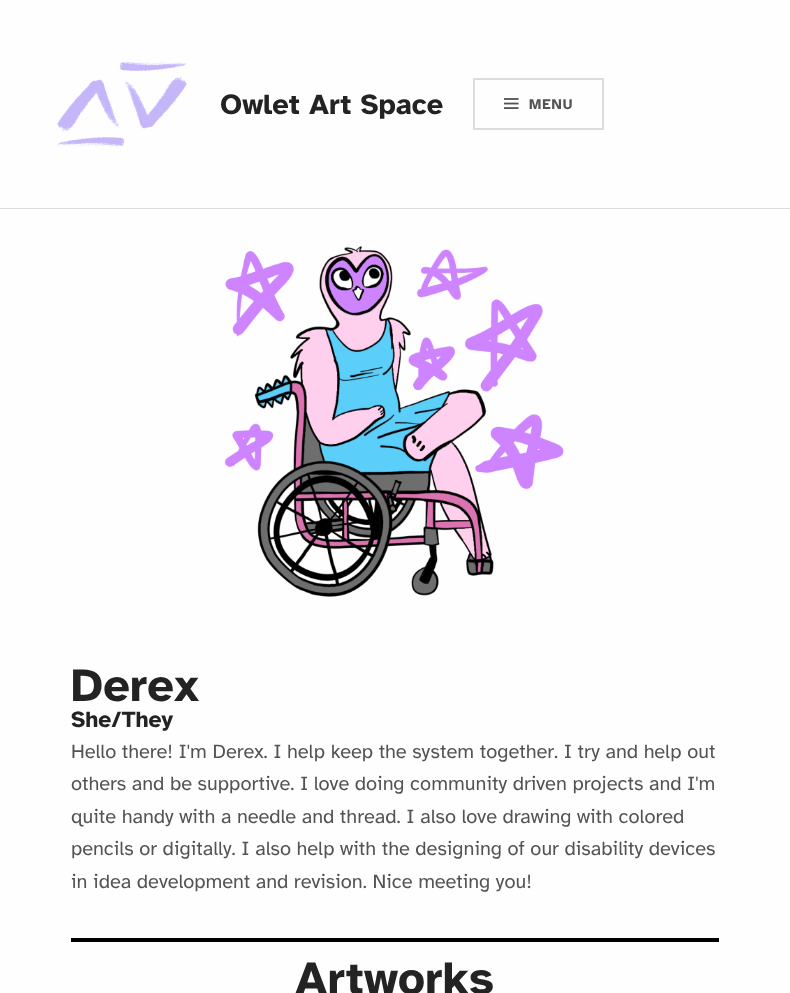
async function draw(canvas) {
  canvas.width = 790
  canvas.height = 993
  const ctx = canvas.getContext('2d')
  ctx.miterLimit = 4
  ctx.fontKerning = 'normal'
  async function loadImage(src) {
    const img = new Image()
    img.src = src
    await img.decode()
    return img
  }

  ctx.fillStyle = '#fefeff'
  ctx.fillRect(0, 0, 790, 993)
  ctx.fillStyle = '#dcdcdd'
  ctx.fillRect(0, 208, 790, 1)
  ctx.drawImage(await loadImage('image0.png'), 57, 61, 130, 86)
  ctx.font = 'bold 29px Atkinson Hyperlegible'
  ctx.fillStyle = '#232324'
  ctx.fillText('Owlet Art Space', 220, 114)
  ctx.strokeStyle = '#dcdcdd'
  ctx.lineWidth = 2
  ctx.strokeRect(474, 79, 129, 50)
  ctx.drawImage(await loadImage('image1.png'), 504, 98, 15, 11)
  ctx.letterSpacing = '1px'
  ctx.font = 'bold 14.5px Atkinson Hyperlegible'
  ctx.fillStyle = '#535354'
  ctx.fillText('MENU', 529, 109)
  ctx.drawImage(await loadImage('image2.png'), 224, 246, 340, 351)
  ctx.letterSpacing = '0px'
  ctx.font = 'bold 47px Atkinson Hyperlegible'
  ctx.fillStyle = '#232324'
  ctx.fillText('Derex', 71, 701)
  ctx.font = 'bold 23px Atkinson Hyperlegible'
  ctx.fillText('She/They', 71, 727)
  ctx.font = '20px Atkinson Hyperlegible'
  ctx.fillStyle = '#535354'
  ctx.fillText('Hello there! I\'m Derex. I help keep the system together. I try and help out', 71, 758)
  ctx.fillText('others and be supportive. I love doing community driven projects and I\'m', 71, 790)
  ctx.fillText('quite handy with a needle and thread. I also love drawing with colored', 71, 823)
  ctx.fillText('pencils or digitally. I also help with the designing of our disability devices', 71, 855)
  ctx.fillText('in idea development and revision. Nice meeting you!', 71, 888)
  ctx.fillStyle = '#000'
  ctx.fillRect(71, 938, 648, 4)
  ctx.font = 'bold 47px Atkinson Hyperlegible'
  ctx.fillStyle = '#232324'
  ctx.fillText('Artworks', 295, 994)
}

draw(document.querySelector('canvas'))
